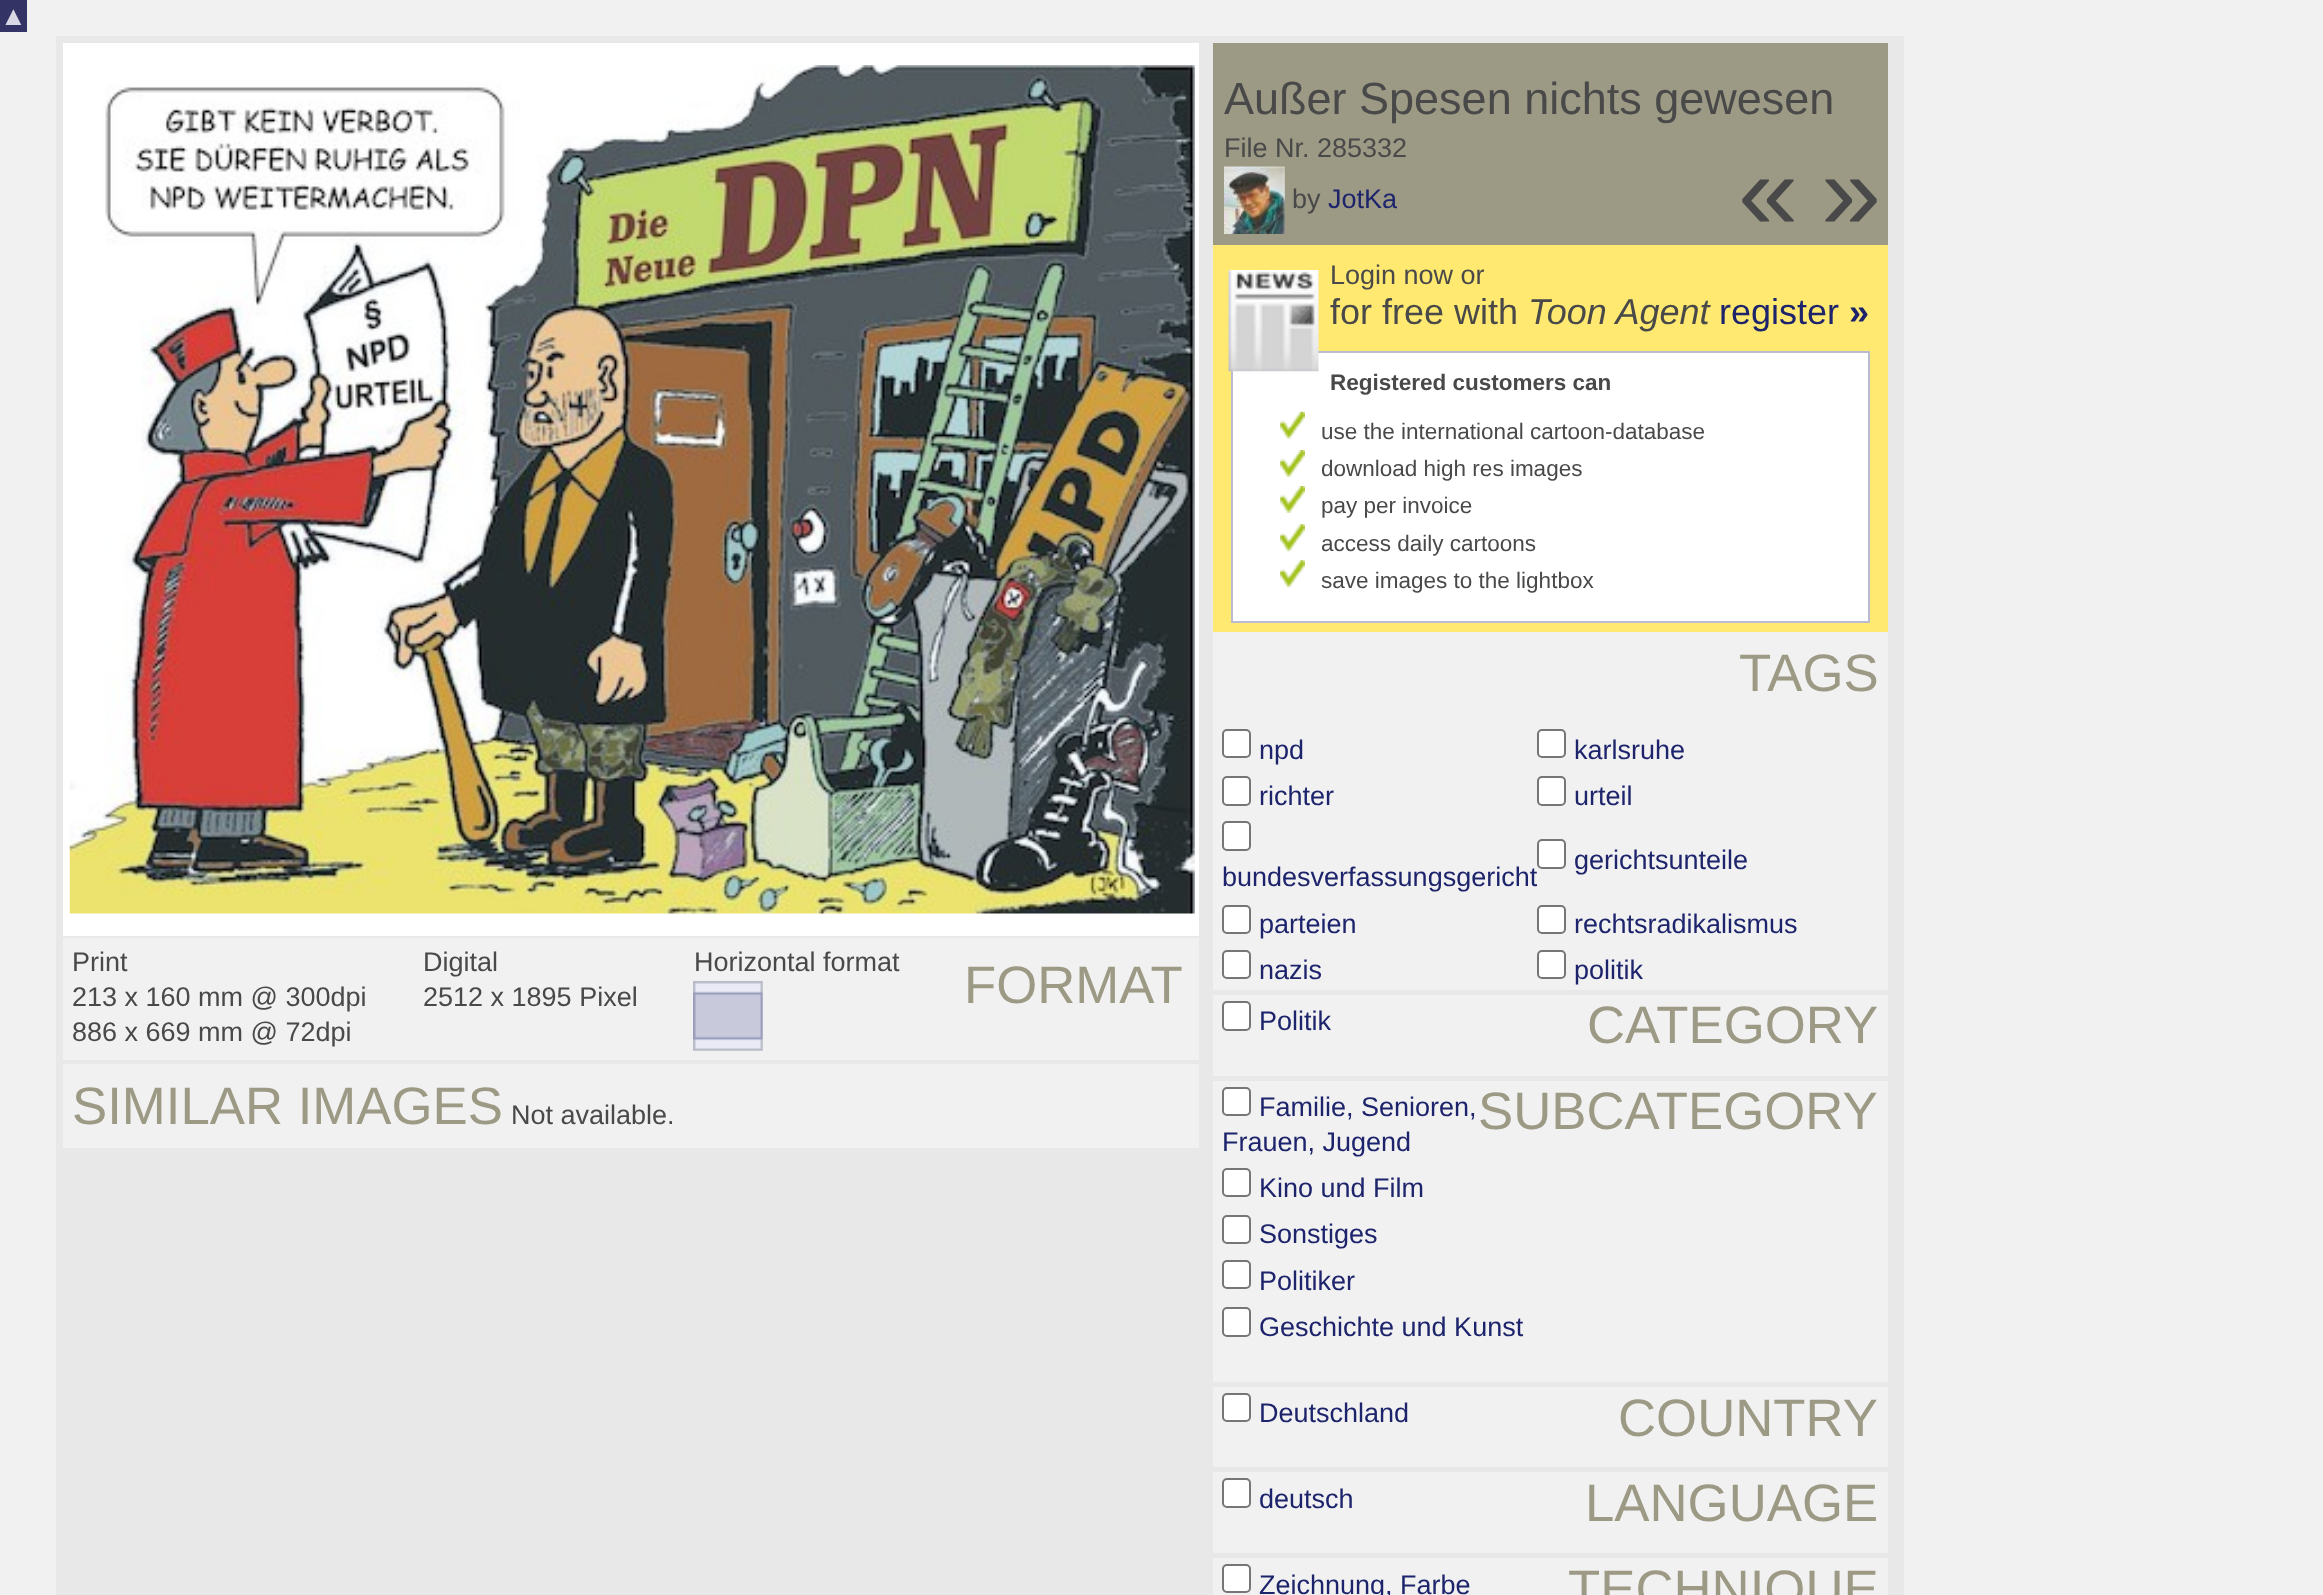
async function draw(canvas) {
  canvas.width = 2323
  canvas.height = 1595
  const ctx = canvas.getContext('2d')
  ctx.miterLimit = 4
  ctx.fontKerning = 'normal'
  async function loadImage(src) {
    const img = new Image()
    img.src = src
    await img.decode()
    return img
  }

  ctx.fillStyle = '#f1f1f1'
  ctx.fillRect(0, 0, 2323, 1595)
  ctx.fillStyle = '#336'
  ctx.fillRect(0, 0, 27, 32)
  ctx.font = '27px Liberation Sans'
  ctx.fillStyle = '#d8d9e5'
  ctx.fillText('▲', 0, 25)
  ctx.fillStyle = '#e8e8e8'
  ctx.fillRect(56, 36, 1848, 1559)
  ctx.fillStyle = '#fff'
  ctx.fillRect(63, 43, 1136, 893)
  ctx.drawImage(await loadImage('image0.png'), 69, 65, 1126, 849)
  ctx.fillStyle = '#f1f1f1'
  ctx.fillRect(63, 938, 1136, 122)
  ctx.fillStyle = '#494949'
  ctx.fillText('Print', 72, 971)
  ctx.fillText('213 x 160 mm @ 300dpi', 72, 1006)
  ctx.fillText('886 x 669 mm @ 72dpi', 72, 1041)
  ctx.fillText('Digital', 423, 971)
  ctx.fillText('2512 x 1895 Pixel', 423, 1006)
  ctx.fillText('Horizontal format', 694, 971)
  ctx.drawImage(await loadImage('image1.png'), 693, 981, 70, 70)
  ctx.font = '52.75px Liberation Sans'
  ctx.fillStyle = '#9c9984'
  ctx.fillText('FORMAT', 964, 1003)
  ctx.fillStyle = '#f1f1f1'
  ctx.fillRect(63, 1064, 1136, 84)
  ctx.fillStyle = '#9c9984'
  ctx.fillText('SIMILAR IMAGES', 72, 1124)
  ctx.font = '27px Liberation Sans'
  ctx.fillStyle = '#494949'
  ctx.fillText('Not available.', 511, 1124)
  ctx.fillStyle = '#9c9984'
  ctx.fillRect(1213, 43, 675, 202)
  ctx.font = '45px Liberation Sans'
  ctx.fillStyle = '#494949'
  ctx.fillText('Außer Spesen nichts gewesen', 1224, 114)
  ctx.font = '27px Liberation Sans'
  ctx.fillText('File Nr. 285332', 1224, 157)
  ctx.drawImage(await loadImage('image2.png'), 1224, 166, 61, 68)
  ctx.fillText('by', 1292, 208)
  ctx.fillStyle = '#1d246c'
  ctx.fillText('JotKa', 1328, 208)
  ctx.font = '108px Liberation Sans'
  ctx.fillStyle = '#494949'
  ctx.fillText('«', 1738, 229)
  ctx.fillText('»', 1821, 229)
  ctx.fillStyle = '#ffe970'
  ctx.fillRect(1213, 245, 675, 387)
  ctx.fillStyle = '#fff'
  ctx.beginPath()
  ctx.rect(1232, 352, 637, 270)
  ctx.fill()
  ctx.strokeStyle = '#b9bbd0'
  ctx.lineWidth = 2
  ctx.stroke()
  ctx.drawImage(await loadImage('image3.png'), 1228, 270, 91, 102)
  ctx.font = '27px Liberation Sans'
  ctx.fillStyle = '#494949'
  ctx.fillText('Login now or', 1330, 284)
  ctx.font = '36px Liberation Sans'
  ctx.fillText('for free with', 1330, 324)
  ctx.font = 'italic 36px Liberation Sans'
  ctx.fillText('Toon Agent', 1528, 324)
  ctx.font = '36px Liberation Sans'
  ctx.fillStyle = '#1d246c'
  ctx.fillText('register', 1719, 324)
  ctx.font = 'bold 36px Liberation Sans'
  ctx.fillText('»', 1849, 324)
  ctx.font = 'bold 22.5px Liberation Sans'
  ctx.fillStyle = '#494949'
  ctx.fillText('Registered customers can', 1330, 390)
  ctx.drawImage(await loadImage('image4.png'), 1280, 411, 25, 28)
  ctx.font = '22.5px Liberation Sans'
  ctx.fillText('use the international cartoon-database', 1321, 439)
  ctx.drawImage(await loadImage('image5.png'), 1280, 450, 25, 27)
  ctx.fillText('download high res images', 1321, 476)
  ctx.drawImage(await loadImage('image5.png'), 1280, 486, 25, 27)
  ctx.fillText('pay per invoice', 1321, 513)
  ctx.drawImage(await loadImage('image6.png'), 1280, 524, 25, 28)
  ctx.fillText('access daily cartoons', 1321, 551)
  ctx.drawImage(await loadImage('image7.png'), 1280, 560, 25, 28)
  ctx.fillText('save images to the lightbox', 1321, 588)
  ctx.fillStyle = '#f1f1f1'
  ctx.fillRect(1213, 632, 675, 963)
  ctx.font = '52.75px Liberation Sans'
  ctx.fillStyle = '#9c9984'
  ctx.fillText('TAGS', 1739, 691)
  ctx.fillStyle = '#fff'
  ctx.beginPath()
  ctx.roundRect(1223, 730, 27, 27, 4)
  ctx.fill()
  ctx.strokeStyle = '#767676'
  ctx.stroke()
  ctx.font = '27px Liberation Sans'
  ctx.fillStyle = '#1d246c'
  ctx.fillText('npd', 1259, 759)
  ctx.fillStyle = '#fff'
  ctx.beginPath()
  ctx.roundRect(1538, 730, 27, 27, 4)
  ctx.fill()
  ctx.stroke()
  ctx.fillStyle = '#1d246c'
  ctx.fillText('karlsruhe', 1574, 759)
  ctx.fillStyle = '#fff'
  ctx.beginPath()
  ctx.roundRect(1223, 777, 27, 28, 4)
  ctx.fill()
  ctx.stroke()
  ctx.fillStyle = '#1d246c'
  ctx.fillText('richter', 1259, 805)
  ctx.fillStyle = '#fff'
  ctx.beginPath()
  ctx.roundRect(1538, 777, 27, 28, 4)
  ctx.fill()
  ctx.stroke()
  ctx.fillStyle = '#1d246c'
  ctx.fillText('urteil', 1574, 805)
  ctx.fillStyle = '#fff'
  ctx.beginPath()
  ctx.roundRect(1538, 840, 27, 28, 4)
  ctx.fill()
  ctx.stroke()
  ctx.fillStyle = '#1d246c'
  ctx.fillText('gerichtsunteile', 1574, 869)
  ctx.fillStyle = '#fff'
  ctx.beginPath()
  ctx.roundRect(1223, 822, 27, 28, 4)
  ctx.fill()
  ctx.stroke()
  ctx.fillStyle = '#1d246c'
  ctx.fillText('bundesverfassungsgericht', 1222, 886)
  ctx.fillStyle = '#fff'
  ctx.beginPath()
  ctx.roundRect(1223, 906, 27, 27, 4)
  ctx.fill()
  ctx.stroke()
  ctx.fillStyle = '#1d246c'
  ctx.fillText('parteien', 1259, 933)
  ctx.fillStyle = '#fff'
  ctx.beginPath()
  ctx.roundRect(1538, 906, 27, 27, 4)
  ctx.fill()
  ctx.stroke()
  ctx.fillStyle = '#1d246c'
  ctx.fillText('rechtsradikalismus', 1574, 933)
  ctx.fillStyle = '#fff'
  ctx.beginPath()
  ctx.roundRect(1223, 951, 27, 27, 4)
  ctx.fill()
  ctx.stroke()
  ctx.fillStyle = '#1d246c'
  ctx.fillText('nazis', 1259, 979)
  ctx.fillStyle = '#fff'
  ctx.beginPath()
  ctx.roundRect(1538, 951, 27, 27, 4)
  ctx.fill()
  ctx.stroke()
  ctx.fillStyle = '#1d246c'
  ctx.fillText('politik', 1574, 979)
  ctx.fillStyle = '#e8e8e8'
  ctx.fillRect(1213, 990, 675, 5)
  ctx.fillStyle = '#fff'
  ctx.beginPath()
  ctx.roundRect(1223, 1002, 27, 28, 4)
  ctx.fill()
  ctx.stroke()
  ctx.fillStyle = '#1d246c'
  ctx.fillText('Politik', 1259, 1030)
  ctx.font = '52.75px Liberation Sans'
  ctx.fillStyle = '#9c9984'
  ctx.fillText('CATEGORY', 1587, 1043)
  ctx.fillStyle = '#e8e8e8'
  ctx.fillRect(1213, 1076, 675, 5)
  ctx.fillStyle = '#fff'
  ctx.beginPath()
  ctx.roundRect(1223, 1088, 27, 27, 4)
  ctx.fill()
  ctx.stroke()
  ctx.font = '27px Liberation Sans'
  ctx.fillStyle = '#1d246c'
  ctx.fillText('Familie, Senioren,', 1259, 1116)
  ctx.font = '52.75px Liberation Sans'
  ctx.fillStyle = '#9c9984'
  ctx.fillText('SUBCATEGORY', 1478, 1129)
  ctx.font = '27px Liberation Sans'
  ctx.fillStyle = '#1d246c'
  ctx.fillText('Frauen, Jugend', 1222, 1151)
  ctx.fillStyle = '#fff'
  ctx.beginPath()
  ctx.roundRect(1223, 1169, 27, 27, 4)
  ctx.fill()
  ctx.stroke()
  ctx.fillStyle = '#1d246c'
  ctx.fillText('Kino und Film', 1259, 1197)
  ctx.fillStyle = '#fff'
  ctx.beginPath()
  ctx.roundRect(1223, 1216, 27, 27, 4)
  ctx.fill()
  ctx.stroke()
  ctx.fillStyle = '#1d246c'
  ctx.fillText('Sonstiges', 1259, 1243)
  ctx.fillStyle = '#fff'
  ctx.beginPath()
  ctx.roundRect(1223, 1261, 27, 27, 4)
  ctx.fill()
  ctx.stroke()
  ctx.fillStyle = '#1d246c'
  ctx.fillText('Politiker', 1259, 1290)
  ctx.fillStyle = '#fff'
  ctx.beginPath()
  ctx.roundRect(1223, 1308, 27, 28, 4)
  ctx.fill()
  ctx.stroke()
  ctx.fillStyle = '#1d246c'
  ctx.fillText('Geschichte und Kunst', 1259, 1336)
  ctx.fillStyle = '#e8e8e8'
  ctx.fillRect(1213, 1382, 675, 5)
  ctx.fillStyle = '#fff'
  ctx.beginPath()
  ctx.roundRect(1223, 1394, 27, 27, 4)
  ctx.fill()
  ctx.stroke()
  ctx.fillStyle = '#1d246c'
  ctx.fillText('Deutschland', 1259, 1422)
  ctx.font = '52.75px Liberation Sans'
  ctx.fillStyle = '#9c9984'
  ctx.fillText('COUNTRY', 1618, 1436)
  ctx.fillStyle = '#e8e8e8'
  ctx.fillRect(1213, 1467, 675, 5)
  ctx.fillStyle = '#fff'
  ctx.beginPath()
  ctx.roundRect(1223, 1479, 27, 28, 4)
  ctx.fill()
  ctx.stroke()
  ctx.font = '27px Liberation Sans'
  ctx.fillStyle = '#1d246c'
  ctx.fillText('deutsch', 1259, 1508)
  ctx.font = '52.75px Liberation Sans'
  ctx.fillStyle = '#9c9984'
  ctx.fillText('LANGUAGE', 1585, 1521)
  ctx.fillStyle = '#e8e8e8'
  ctx.fillRect(1213, 1553, 675, 5)
  ctx.fillStyle = '#fff'
  ctx.beginPath()
  ctx.roundRect(1223, 1565, 27, 27, 4)
  ctx.fill()
  ctx.stroke()
  ctx.font = '27px Liberation Sans'
  ctx.fillStyle = '#1d246c'
  ctx.fillText('Zeichnung, Farbe', 1259, 1594)
  ctx.font = '52.75px Liberation Sans'
  ctx.fillStyle = '#9c9984'
  ctx.fillText('TECHNIQUE', 1568, 1607)
}

draw(document.querySelector('canvas'))
